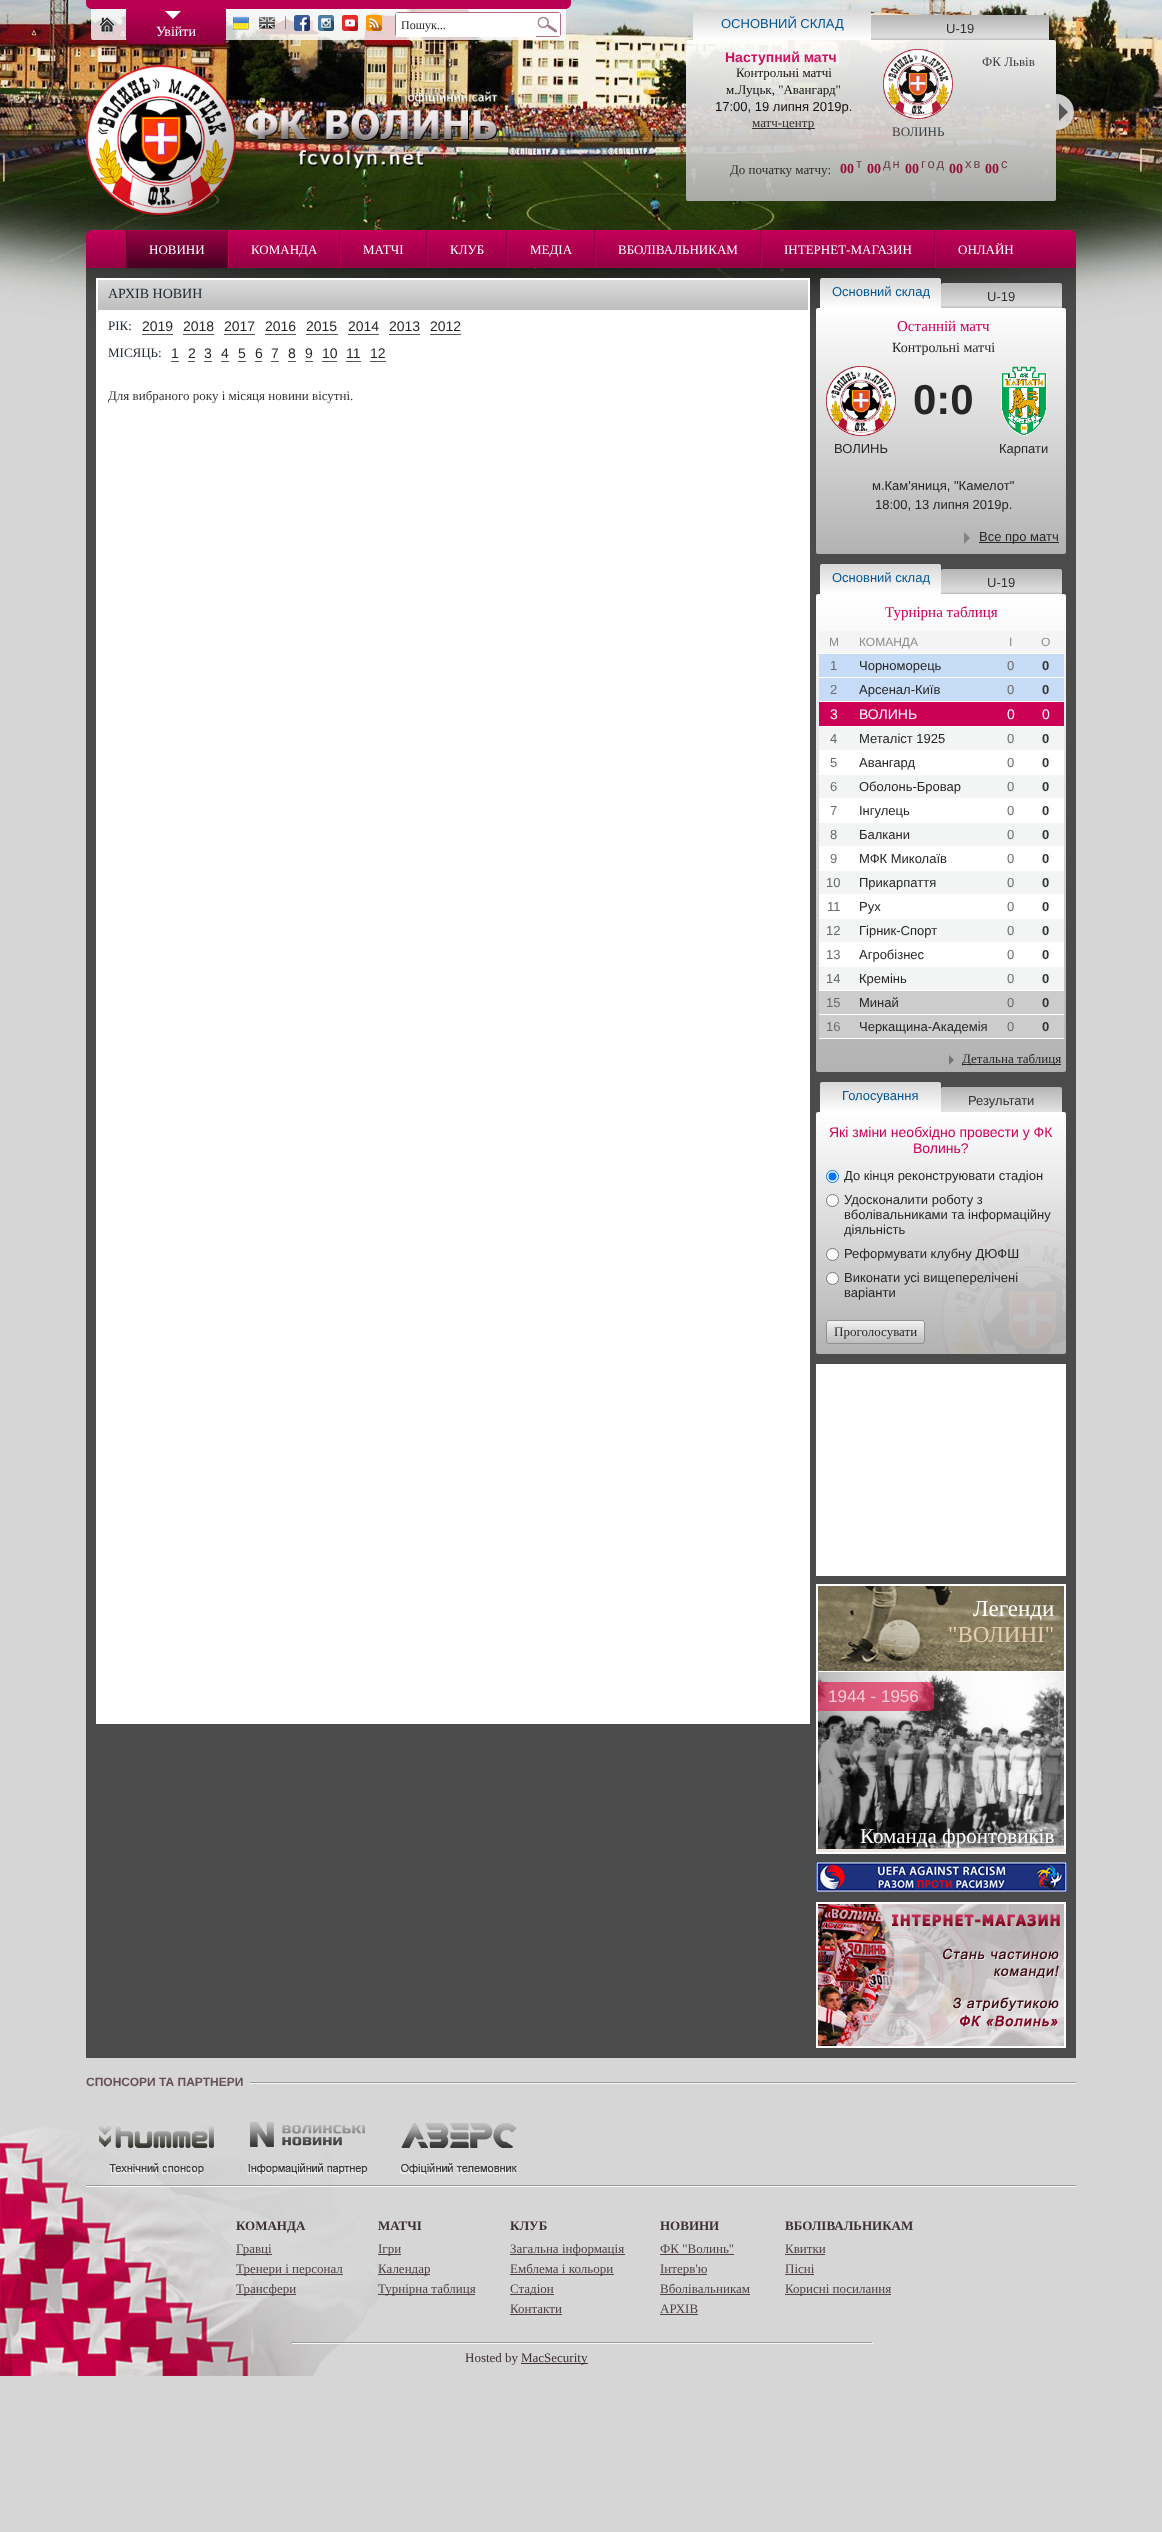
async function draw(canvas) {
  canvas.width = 1162
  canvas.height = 2532
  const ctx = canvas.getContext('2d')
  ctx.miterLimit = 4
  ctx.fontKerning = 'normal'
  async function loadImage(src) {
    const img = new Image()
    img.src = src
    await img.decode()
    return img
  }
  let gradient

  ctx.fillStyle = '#d6d6d6'
  ctx.fillRect(0, 0, 1162, 2532)
  ctx.drawImage(await loadImage('image0.png'), 0, 0, 1162, 336)
  ctx.fillStyle = '#ffffffcc'
  ctx.beginPath()
  ctx.roundRect(91, 0, 475, 40, [0, 0, 2, 2])
  ctx.fill()
  ctx.fillStyle = '#b90053'
  ctx.beginPath()
  ctx.moveTo(86, -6)
  ctx.lineTo(571, -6)
  ctx.lineTo(571, 3)
  ctx.bezierCurveTo(571, 6.5, 568.5, 9, 565, 9)
  ctx.lineTo(92, 9)
  ctx.bezierCurveTo(88.5, 9, 86, 6.5, 86, 3)
  ctx.closePath()
  ctx.fill()
  gradient = ctx.createLinearGradient(176, 9, 176, 44)
  gradient.addColorStop(0, '#b90053')
  gradient.addColorStop(1, '#8d003f')
  ctx.fillStyle = gradient
  ctx.beginPath()
  ctx.roundRect(126, 9, 100, 35, [0, 0, 6, 6])
  ctx.fill()
  ctx.fillStyle = '#fff'
  ctx.beginPath()
  ctx.moveTo(165, 11)
  ctx.lineTo(181, 11)
  ctx.lineTo(173, 19)
  ctx.closePath()
  ctx.fill()
  ctx.font = '14px Liberation Serif'
  ctx.fillText('Увійти', 156, 36)
  ctx.drawImage(await loadImage('image1.png'), 99, 16, 17, 18)
  ctx.drawImage(await loadImage('image2.png'), 233, 16, 16, 14)
  ctx.drawImage(await loadImage('image3.png'), 259, 17, 16, 12)
  ctx.fillStyle = '#81626d'
  ctx.fillText('|', 284, 26)
  ctx.drawImage(await loadImage('image4.png'), 294, 15, 16, 16)
  ctx.drawImage(await loadImage('image5.png'), 318, 15, 16, 16)
  ctx.drawImage(await loadImage('image6.png'), 342, 15, 16, 16)
  ctx.drawImage(await loadImage('image7.png'), 366, 15, 16, 16)
  ctx.beginPath()
  ctx.roundRect(395.5, 12.5, 165, 24, 2.5)
  ctx.strokeStyle = '#b06b89'
  ctx.stroke()
  ctx.fillStyle = '#fff'
  ctx.fillRect(396, 13, 140, 24)
  ctx.font = '12px Liberation Serif'
  ctx.fillStyle = '#262626'
  ctx.fillText('Пошук...', 401, 29)
  ctx.fillStyle = '#fff'
  ctx.fillRect(536, 13, 24, 23)
  ctx.drawImage(await loadImage('image8.png'), 537, 16, 20, 17)
  gradient = ctx.createLinearGradient(960, 15, 960, 45)
  gradient.addColorStop(0, '#b4b4b4')
  gradient.addColorStop(1, '#ececec')
  ctx.fillStyle = gradient
  ctx.beginPath()
  ctx.roundRect(871, 15, 178, 25, [2, 2, 0, 0])
  ctx.fill()
  ctx.save()
  ctx.beginPath()
  ctx.moveTo(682, 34)
  ctx.lineTo(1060, 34)
  ctx.lineTo(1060, 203)
  ctx.lineTo(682, 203)
  ctx.closePath()
  ctx.moveTo(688, 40)
  ctx.lineTo(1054, 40)
  ctx.bezierCurveTo(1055, 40, 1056, 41, 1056, 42)
  ctx.lineTo(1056, 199)
  ctx.bezierCurveTo(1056, 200, 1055, 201, 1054, 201)
  ctx.lineTo(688, 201)
  ctx.bezierCurveTo(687, 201, 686, 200, 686, 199)
  ctx.lineTo(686, 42)
  ctx.bezierCurveTo(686, 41, 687, 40, 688, 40)
  ctx.closePath()
  ctx.clip('evenodd')
  ctx.fillStyle = '#0000005e'
  ctx.filter = 'blur(1.5px)'
  ctx.beginPath()
  ctx.rect(688, 40, 366, 157)
  ctx.fill()
  ctx.filter = 'none'
  ctx.restore()
  gradient = ctx.createLinearGradient(782, 10, 782, 40)
  gradient.addColorStop(0, '#d7d7d7')
  gradient.addColorStop(1, '#fff')
  ctx.fillStyle = gradient
  ctx.beginPath()
  ctx.roundRect(693, 10, 178, 30, [2, 2, 0, 0])
  ctx.fill()
  ctx.font = '13px Liberation Sans'
  ctx.fillStyle = '#059'
  ctx.fillText('ОСНОВНИЙ СКЛАД', 721, 28)
  ctx.fillStyle = '#333'
  ctx.fillText('U-19', 946, 33)
  gradient = ctx.createLinearGradient(871, 40, 871, 201)
  gradient.addColorStop(0, '#ffffffed')
  gradient.addColorStop(1, '#b2b2b2ed')
  ctx.fillStyle = gradient
  ctx.beginPath()
  ctx.roundRect(686, 40, 370, 161, 2)
  ctx.fill()
  ctx.font = 'bold 14px Liberation Sans'
  ctx.fillStyle = '#cf1160'
  ctx.fillText('Наступний матч', 725, 62)
  ctx.font = '13px Liberation Serif'
  ctx.fillStyle = '#101010'
  ctx.fillText('Контрольні матчі', 736, 77)
  ctx.fillText('м.Луцьк, "Авангард"', 726, 94)
  ctx.font = '13px Liberation Sans'
  ctx.fillText('17:00, 19 липня 2019р.', 715, 111)
  ctx.fillStyle = '#262626ed'
  ctx.fillRect(752, 128, 63, 1)
  ctx.font = '13px Liberation Serif'
  ctx.fillStyle = '#333'
  ctx.fillText('матч-центр', 752, 127)
  ctx.fillStyle = '#3e3e3e'
  ctx.fillText('ФК Львів', 982, 66)
  ctx.drawImage(await loadImage('image9.png'), 883, 49, 70, 70)
  ctx.fillText('ВОЛИНЬ', 892, 136)
  ctx.fillStyle = '#2b2c2b'
  ctx.fillText('До початку матчу:', 730, 174)
  ctx.font = 'bold 14px Liberation Serif'
  ctx.fillStyle = '#960d34'
  ctx.fillText('0', 840, 173)
  ctx.fillText('0', 847, 173)
  ctx.letterSpacing = '2px'
  ctx.font = '13px Liberation Sans'
  ctx.fillStyle = '#683d48'
  ctx.fillText('т', 856, 168)
  ctx.letterSpacing = '0px'
  ctx.font = 'bold 14px Liberation Serif'
  ctx.fillStyle = '#960d34'
  ctx.fillText('00', 867, 173)
  ctx.letterSpacing = '2px'
  ctx.font = '13px Liberation Sans'
  ctx.fillStyle = '#683d48'
  ctx.fillText('дн', 883, 168)
  ctx.letterSpacing = '0px'
  ctx.font = 'bold 14px Liberation Serif'
  ctx.fillStyle = '#960d34'
  ctx.fillText('00', 905, 173)
  ctx.letterSpacing = '2px'
  ctx.font = '13px Liberation Sans'
  ctx.fillStyle = '#683d48'
  ctx.fillText('год', 921, 168)
  ctx.letterSpacing = '0px'
  ctx.font = 'bold 14px Liberation Serif'
  ctx.fillStyle = '#960d34'
  ctx.fillText('00', 949, 173)
  ctx.letterSpacing = '2px'
  ctx.font = '13px Liberation Sans'
  ctx.fillStyle = '#683d48'
  ctx.fillText('хв', 965, 168)
  ctx.letterSpacing = '0px'
  ctx.font = 'bold 14px Liberation Serif'
  ctx.fillStyle = '#960d34'
  ctx.fillText('00', 985, 173)
  ctx.letterSpacing = '2px'
  ctx.font = '13px Liberation Sans'
  ctx.fillStyle = '#683d48'
  ctx.fillText('с', 1001, 168)
  ctx.fillStyle = '#d9d9d9ed'
  ctx.beginPath()
  ctx.roundRect(1056, 94, 18, 36, [0, 18, 18, 0])
  ctx.fill()
  ctx.fillStyle = '#4d4d4ded'
  ctx.beginPath()
  ctx.moveTo(1059, 121)
  ctx.lineTo(1059, 103)
  ctx.lineTo(1068, 112)
  ctx.closePath()
  ctx.fill()
  ctx.drawImage(await loadImage('image10.png'), 86, 65, 150, 150)
  ctx.drawImage(await loadImage('image11.png'), 245, 91, 253, 80)
  gradient = ctx.createLinearGradient(581, 230, 581, 268)
  gradient.addColorStop(0, '#c50059')
  gradient.addColorStop(1, '#940043')
  ctx.fillStyle = gradient
  ctx.beginPath()
  ctx.roundRect(86, 230, 990, 38, [6, 6, 0, 0])
  ctx.fill()
  gradient = ctx.createLinearGradient(177, 230, 177, 268)
  gradient.addColorStop(0, '#9e0047')
  gradient.addColorStop(1, '#460020')
  ctx.fillStyle = gradient
  ctx.fillRect(127, 230, 100, 38)
  ctx.fillStyle = '#64002a'
  ctx.fillRect(227, 230, 1, 38)
  ctx.fillRect(126, 230, 1, 38)
  ctx.letterSpacing = '0px'
  ctx.font = '13px Liberation Serif'
  ctx.fillStyle = '#fff'
  ctx.fillText('НОВИНИ', 149, 254)
  ctx.fillStyle = '#940043'
  ctx.fillRect(339, 230, 1, 38)
  ctx.fillStyle = '#bb0054'
  ctx.fillRect(228, 230, 1, 38)
  ctx.fillStyle = '#fff'
  ctx.fillText('КОМАНДА', 251, 254)
  ctx.fillStyle = '#940043'
  ctx.fillRect(426, 230, 1, 38)
  ctx.fillStyle = '#bb0054'
  ctx.fillRect(340, 230, 1, 38)
  ctx.fillStyle = '#fff'
  ctx.fillText('МАТЧІ', 363, 254)
  ctx.fillStyle = '#940043'
  ctx.fillRect(506, 230, 1, 38)
  ctx.fillStyle = '#bb0054'
  ctx.fillRect(427, 230, 1, 38)
  ctx.fillStyle = '#fff'
  ctx.fillText('КЛУБ', 450, 254)
  ctx.fillStyle = '#940043'
  ctx.fillRect(594, 230, 1, 38)
  ctx.fillStyle = '#bb0054'
  ctx.fillRect(507, 230, 1, 38)
  ctx.fillStyle = '#fff'
  ctx.fillText('МЕДІА', 530, 254)
  ctx.fillStyle = '#940043'
  ctx.fillRect(760, 230, 1, 38)
  ctx.fillStyle = '#bb0054'
  ctx.fillRect(595, 230, 1, 38)
  ctx.fillStyle = '#fff'
  ctx.fillText('ВБОЛІВАЛЬНИКАМ', 618, 254)
  ctx.fillStyle = '#940043'
  ctx.fillRect(934, 230, 1, 38)
  ctx.fillStyle = '#bb0054'
  ctx.fillRect(761, 230, 1, 38)
  ctx.fillStyle = '#fff'
  ctx.fillText('ІНТЕРНЕТ-МАГАЗИН', 784, 254)
  ctx.fillStyle = '#bb0054'
  ctx.fillRect(935, 230, 1, 38)
  ctx.fillStyle = '#fff'
  ctx.fillText('ОНЛАЙН', 958, 254)
  ctx.fillStyle = '#000000a6'
  ctx.fillRect(86, 268, 990, 1790)
  ctx.strokeStyle = '#fff'
  ctx.lineWidth = 2
  ctx.strokeRect(97, 279, 712, 1444)
  ctx.fillStyle = '#fff'
  ctx.fillRect(98, 310, 710, 1412)
  gradient = ctx.createLinearGradient(453, 280, 453, 310)
  gradient.addColorStop(0, '#dbdbdb')
  gradient.addColorStop(1, '#bdbdbd')
  ctx.fillStyle = gradient
  ctx.fillRect(98, 280, 710, 30)
  ctx.font = '14px Liberation Serif'
  ctx.fillStyle = '#212932'
  ctx.fillText('АРХІВ НОВИН', 108, 298)
  ctx.font = '13px Liberation Serif'
  ctx.fillText('РІК:', 108, 330)
  ctx.fillStyle = '#555'
  ctx.fillRect(142, 334, 31, 1)
  ctx.font = '14px Liberation Sans'
  ctx.fillStyle = '#262626'
  ctx.fillText('2019', 142, 331)
  ctx.fillStyle = '#555'
  ctx.fillRect(183, 334, 31, 1)
  ctx.fillStyle = '#262626'
  ctx.fillText('2018', 183, 331)
  ctx.fillStyle = '#555'
  ctx.fillRect(224, 334, 31, 1)
  ctx.fillStyle = '#262626'
  ctx.fillText('2017', 224, 331)
  ctx.fillStyle = '#555'
  ctx.fillRect(265, 334, 31, 1)
  ctx.fillStyle = '#262626'
  ctx.fillText('2016', 265, 331)
  ctx.fillStyle = '#555'
  ctx.fillRect(306, 334, 32, 1)
  ctx.fillStyle = '#262626'
  ctx.fillText('2015', 306, 331)
  ctx.fillStyle = '#555'
  ctx.fillRect(348, 334, 31, 1)
  ctx.fillStyle = '#262626'
  ctx.fillText('2014', 348, 331)
  ctx.fillStyle = '#555'
  ctx.fillRect(389, 334, 31, 1)
  ctx.fillStyle = '#262626'
  ctx.fillText('2013', 389, 331)
  ctx.fillStyle = '#555'
  ctx.fillRect(430, 334, 31, 1)
  ctx.fillStyle = '#262626'
  ctx.fillText('2012', 430, 331)
  ctx.font = '13px Liberation Serif'
  ctx.fillStyle = '#212932'
  ctx.fillText('МІСЯЦЬ:', 108, 357)
  ctx.fillStyle = '#555'
  ctx.fillRect(171, 361, 8, 1)
  ctx.font = '14px Liberation Sans'
  ctx.fillStyle = '#262626'
  ctx.fillText('1', 171, 358)
  ctx.fillStyle = '#555'
  ctx.fillRect(188, 361, 7, 1)
  ctx.fillStyle = '#262626'
  ctx.fillText('2', 188, 358)
  ctx.fillStyle = '#555'
  ctx.fillRect(204, 361, 8, 1)
  ctx.fillStyle = '#262626'
  ctx.fillText('3', 204, 358)
  ctx.fillStyle = '#555'
  ctx.fillRect(221, 361, 8, 1)
  ctx.fillStyle = '#262626'
  ctx.fillText('4', 221, 358)
  ctx.fillStyle = '#555'
  ctx.fillRect(238, 361, 8, 1)
  ctx.fillStyle = '#262626'
  ctx.fillText('5', 238, 358)
  ctx.fillStyle = '#555'
  ctx.fillRect(255, 361, 7, 1)
  ctx.fillStyle = '#262626'
  ctx.fillText('6', 255, 358)
  ctx.fillStyle = '#555'
  ctx.fillRect(271, 361, 8, 1)
  ctx.fillStyle = '#262626'
  ctx.fillText('7', 271, 358)
  ctx.fillStyle = '#555'
  ctx.fillRect(288, 361, 8, 1)
  ctx.fillStyle = '#262626'
  ctx.fillText('8', 288, 358)
  ctx.fillStyle = '#555'
  ctx.fillRect(305, 361, 8, 1)
  ctx.fillStyle = '#262626'
  ctx.fillText('9', 305, 358)
  ctx.fillStyle = '#555'
  ctx.fillRect(322, 361, 15, 1)
  ctx.fillStyle = '#262626'
  ctx.fillText('10', 322, 358)
  ctx.fillStyle = '#555'
  ctx.fillRect(346, 361, 15, 1)
  ctx.fillStyle = '#262626'
  ctx.fillText('11', 346, 358)
  ctx.fillStyle = '#555'
  ctx.fillRect(370, 361, 16, 1)
  ctx.fillStyle = '#262626'
  ctx.fillText('12', 370, 358)
  ctx.font = '13px Liberation Serif'
  ctx.fillStyle = '#333'
  ctx.fillText('Для вибраного року і місяця новини вісутні.', 108, 400)
  gradient = ctx.createLinearGradient(1002, 283, 1002, 313)
  gradient.addColorStop(0, '#b4b4b4')
  gradient.addColorStop(1, '#ececec')
  ctx.fillStyle = gradient
  ctx.beginPath()
  ctx.roundRect(941, 283, 121, 25, [2, 2, 0, 0])
  ctx.fill()
  ctx.fillStyle = '#00000066'
  ctx.filter = 'blur(1.5px)'
  ctx.beginPath()
  ctx.rect(818, 308, 246, 242)
  ctx.fill()
  ctx.filter = 'none'
  gradient = ctx.createLinearGradient(881, 278, 881, 308)
  gradient.addColorStop(0, '#d7d7d7')
  gradient.addColorStop(1, '#fff')
  ctx.fillStyle = gradient
  ctx.beginPath()
  ctx.roundRect(820, 278, 121, 30, [2, 2, 0, 0])
  ctx.fill()
  ctx.font = '13px Liberation Sans'
  ctx.fillStyle = '#059'
  ctx.fillText('Основний склад', 832, 296)
  ctx.fillStyle = '#333'
  ctx.fillText('U-19', 987, 301)
  gradient = ctx.createLinearGradient(941, 308, 941, 554)
  gradient.addColorStop(0, '#fff')
  gradient.addColorStop(1, '#b2b2b2')
  ctx.fillStyle = gradient
  ctx.beginPath()
  ctx.roundRect(816, 308, 250, 246, 2)
  ctx.fill()
  ctx.font = '15px Liberation Serif'
  ctx.fillStyle = '#c05'
  ctx.fillText('Останній матч', 897, 331)
  ctx.font = '14px Liberation Serif'
  ctx.fillStyle = '#262626'
  ctx.fillText('Контрольні матчі', 892, 352)
  ctx.font = 'bold 42px Liberation Sans'
  ctx.fillText('0:0', 913, 414)
  ctx.drawImage(await loadImage('image12.png'), 826, 366, 70, 70)
  ctx.font = '13px Liberation Sans'
  ctx.fillText('ВОЛИНЬ', 834, 453)
  ctx.drawImage(await loadImage('image13.png'), 1001, 366, 46, 70)
  ctx.fillText('Карпати', 999, 453)
  ctx.fillText('м.Кам\'яниця, "Камелот"', 872, 490)
  ctx.fillText('18:00, 13 липня 2019р.', 875, 509)
  ctx.fillStyle = '#828282'
  ctx.beginPath()
  ctx.moveTo(964, 544)
  ctx.lineTo(964, 532)
  ctx.lineTo(970, 538)
  ctx.closePath()
  ctx.fill()
  ctx.fillStyle = '#262626'
  ctx.fillRect(979, 542, 80, 1)
  ctx.fillText('Все про матч', 979, 541)
  gradient = ctx.createLinearGradient(1002, 569, 1002, 599)
  gradient.addColorStop(0, '#b4b4b4')
  gradient.addColorStop(1, '#ececec')
  ctx.fillStyle = gradient
  ctx.beginPath()
  ctx.roundRect(941, 569, 121, 25, [2, 2, 0, 0])
  ctx.fill()
  ctx.fillStyle = '#00000066'
  ctx.filter = 'blur(1.5px)'
  ctx.beginPath()
  ctx.rect(818, 594, 246, 474)
  ctx.fill()
  ctx.filter = 'none'
  gradient = ctx.createLinearGradient(881, 564, 881, 594)
  gradient.addColorStop(0, '#d7d7d7')
  gradient.addColorStop(1, '#fff')
  ctx.fillStyle = gradient
  ctx.beginPath()
  ctx.roundRect(820, 564, 121, 30, [2, 2, 0, 0])
  ctx.fill()
  ctx.fillStyle = '#059'
  ctx.fillText('Основний склад', 832, 582)
  ctx.fillStyle = '#333'
  ctx.fillText('U-19', 987, 587)
  gradient = ctx.createLinearGradient(941, 594, 941, 1072)
  gradient.addColorStop(0, '#fff')
  gradient.addColorStop(1, '#b2b2b2')
  ctx.fillStyle = gradient
  ctx.beginPath()
  ctx.roundRect(816, 594, 250, 478, 2)
  ctx.fill()
  ctx.font = '15px Liberation Serif'
  ctx.fillStyle = '#c05'
  ctx.fillText('Турнірна таблиця', 885, 617)
  ctx.fillStyle = '#fff'
  ctx.fillRect(819, 751, 245, 216)
  ctx.fillStyle = '#f4f4f4'
  ctx.fillRect(819, 631, 245, 16)
  ctx.fillStyle = '#fff'
  ctx.fillRect(819, 653, 245, 1)
  ctx.font = '12px Liberation Sans'
  ctx.fillStyle = '#8a8b8d'
  ctx.fillText('М', 829, 646)
  ctx.fillText('КОМАНДА', 859, 646)
  ctx.fillText('І', 1009, 646)
  ctx.fillText('О', 1041, 646)
  ctx.fillStyle = '#c6dbf5'
  ctx.fillRect(819, 654, 245, 23)
  ctx.fillStyle = '#fff'
  ctx.fillRect(819, 677, 245, 1)
  ctx.font = '13px Liberation Sans'
  ctx.fillStyle = '#696b6a'
  ctx.fillText('1', 830, 670)
  ctx.fillStyle = '#262626'
  ctx.fillText('Чорноморець', 859, 670)
  ctx.fillStyle = '#696b6a'
  ctx.fillText('0', 1007, 670)
  ctx.font = 'bold 13px Liberation Sans'
  ctx.fillStyle = '#333'
  ctx.fillText('0', 1042, 670)
  ctx.fillStyle = '#c6dbf5'
  ctx.fillRect(819, 678, 245, 23)
  ctx.fillStyle = '#fff'
  ctx.fillRect(819, 701, 245, 1)
  ctx.font = '13px Liberation Sans'
  ctx.fillStyle = '#696b6a'
  ctx.fillText('2', 830, 694)
  ctx.fillStyle = '#262626'
  ctx.fillText('Арсенал-Київ', 859, 694)
  ctx.fillStyle = '#696b6a'
  ctx.fillText('0', 1007, 694)
  ctx.font = 'bold 13px Liberation Sans'
  ctx.fillStyle = '#333'
  ctx.fillText('0', 1042, 694)
  ctx.fillStyle = '#c05'
  ctx.fillRect(819, 702, 245, 24)
  ctx.fillStyle = '#fff'
  ctx.fillRect(819, 726, 245, 1)
  ctx.font = '14px Liberation Sans'
  ctx.fillText('3', 830, 719)
  ctx.fillText('ВОЛИНЬ', 859, 719)
  ctx.fillText('0', 1007, 719)
  ctx.fillText('0', 1042, 719)
  ctx.fillStyle = '#f3f4f4'
  ctx.fillRect(819, 727, 245, 23)
  ctx.fillStyle = '#fff'
  ctx.fillRect(819, 750, 245, 1)
  ctx.font = '13px Liberation Sans'
  ctx.fillStyle = '#696b6a'
  ctx.fillText('4', 830, 743)
  ctx.fillStyle = '#262626'
  ctx.fillText('Металіст 1925', 859, 743)
  ctx.fillStyle = '#696b6a'
  ctx.fillText('0', 1007, 743)
  ctx.font = 'bold 13px Liberation Sans'
  ctx.fillStyle = '#333'
  ctx.fillText('0', 1042, 743)
  ctx.font = '13px Liberation Sans'
  ctx.fillStyle = '#696b6a'
  ctx.fillText('5', 830, 767)
  ctx.fillStyle = '#262626'
  ctx.fillText('Авангард', 859, 767)
  ctx.fillStyle = '#696b6a'
  ctx.fillText('0', 1007, 767)
  ctx.font = 'bold 13px Liberation Sans'
  ctx.fillStyle = '#333'
  ctx.fillText('0', 1042, 767)
  ctx.fillStyle = '#f3f4f4'
  ctx.fillRect(819, 775, 245, 23)
  ctx.font = '13px Liberation Sans'
  ctx.fillStyle = '#696b6a'
  ctx.fillText('6', 830, 791)
  ctx.fillStyle = '#262626'
  ctx.fillText('Оболонь-Бровар', 859, 791)
  ctx.fillStyle = '#696b6a'
  ctx.fillText('0', 1007, 791)
  ctx.font = 'bold 13px Liberation Sans'
  ctx.fillStyle = '#333'
  ctx.fillText('0', 1042, 791)
  ctx.font = '13px Liberation Sans'
  ctx.fillStyle = '#696b6a'
  ctx.fillText('7', 830, 815)
  ctx.fillStyle = '#262626'
  ctx.fillText('Інгулець', 859, 815)
  ctx.fillStyle = '#696b6a'
  ctx.fillText('0', 1007, 815)
  ctx.font = 'bold 13px Liberation Sans'
  ctx.fillStyle = '#333'
  ctx.fillText('0', 1042, 815)
  ctx.fillStyle = '#f3f4f4'
  ctx.fillRect(819, 823, 245, 23)
  ctx.font = '13px Liberation Sans'
  ctx.fillStyle = '#696b6a'
  ctx.fillText('8', 830, 839)
  ctx.fillStyle = '#262626'
  ctx.fillText('Балкани', 859, 839)
  ctx.fillStyle = '#696b6a'
  ctx.fillText('0', 1007, 839)
  ctx.font = 'bold 13px Liberation Sans'
  ctx.fillStyle = '#333'
  ctx.fillText('0', 1042, 839)
  ctx.font = '13px Liberation Sans'
  ctx.fillStyle = '#696b6a'
  ctx.fillText('9', 830, 863)
  ctx.fillStyle = '#262626'
  ctx.fillText('МФК Миколаїв', 859, 863)
  ctx.fillStyle = '#696b6a'
  ctx.fillText('0', 1007, 863)
  ctx.font = 'bold 13px Liberation Sans'
  ctx.fillStyle = '#333'
  ctx.fillText('0', 1042, 863)
  ctx.fillStyle = '#f3f4f4'
  ctx.fillRect(819, 871, 245, 23)
  ctx.font = '13px Liberation Sans'
  ctx.fillStyle = '#696b6a'
  ctx.fillText('10', 826, 887)
  ctx.fillStyle = '#262626'
  ctx.fillText('Прикарпаття', 859, 887)
  ctx.fillStyle = '#696b6a'
  ctx.fillText('0', 1007, 887)
  ctx.font = 'bold 13px Liberation Sans'
  ctx.fillStyle = '#333'
  ctx.fillText('0', 1042, 887)
  ctx.font = '13px Liberation Sans'
  ctx.fillStyle = '#696b6a'
  ctx.fillText('11', 827, 911)
  ctx.fillStyle = '#262626'
  ctx.fillText('Рух', 859, 911)
  ctx.fillStyle = '#696b6a'
  ctx.fillText('0', 1007, 911)
  ctx.font = 'bold 13px Liberation Sans'
  ctx.fillStyle = '#333'
  ctx.fillText('0', 1042, 911)
  ctx.fillStyle = '#f3f4f4'
  ctx.fillRect(819, 919, 245, 23)
  ctx.font = '13px Liberation Sans'
  ctx.fillStyle = '#696b6a'
  ctx.fillText('12', 826, 935)
  ctx.fillStyle = '#262626'
  ctx.fillText('Гірник-Спорт', 859, 935)
  ctx.fillStyle = '#696b6a'
  ctx.fillText('0', 1007, 935)
  ctx.font = 'bold 13px Liberation Sans'
  ctx.fillStyle = '#333'
  ctx.fillText('0', 1042, 935)
  ctx.font = '13px Liberation Sans'
  ctx.fillStyle = '#696b6a'
  ctx.fillText('13', 826, 959)
  ctx.fillStyle = '#262626'
  ctx.fillText('Агробізнес', 859, 959)
  ctx.fillStyle = '#696b6a'
  ctx.fillText('0', 1007, 959)
  ctx.font = 'bold 13px Liberation Sans'
  ctx.fillStyle = '#333'
  ctx.fillText('0', 1042, 959)
  ctx.fillStyle = '#f3f4f4'
  ctx.fillRect(819, 967, 245, 23)
  ctx.fillStyle = '#fff'
  ctx.fillRect(819, 990, 245, 1)
  ctx.font = '13px Liberation Sans'
  ctx.fillStyle = '#696b6a'
  ctx.fillText('14', 826, 983)
  ctx.fillStyle = '#262626'
  ctx.fillText('Кремінь', 859, 983)
  ctx.fillStyle = '#696b6a'
  ctx.fillText('0', 1007, 983)
  ctx.font = 'bold 13px Liberation Sans'
  ctx.fillStyle = '#333'
  ctx.fillText('0', 1042, 983)
  ctx.fillStyle = '#ccc'
  ctx.fillRect(819, 991, 245, 23)
  ctx.fillStyle = '#fff'
  ctx.fillRect(819, 1014, 245, 1)
  ctx.font = '13px Liberation Sans'
  ctx.fillStyle = '#696b6a'
  ctx.fillText('15', 826, 1007)
  ctx.fillStyle = '#262626'
  ctx.fillText('Минай', 859, 1007)
  ctx.fillStyle = '#696b6a'
  ctx.fillText('0', 1007, 1007)
  ctx.font = 'bold 13px Liberation Sans'
  ctx.fillStyle = '#333'
  ctx.fillText('0', 1042, 1007)
  ctx.fillStyle = '#ccc'
  ctx.fillRect(819, 1015, 245, 23)
  ctx.fillStyle = '#fff'
  ctx.fillRect(819, 1038, 245, 1)
  ctx.font = '13px Liberation Sans'
  ctx.fillStyle = '#696b6a'
  ctx.fillText('16', 826, 1031)
  ctx.fillStyle = '#262626'
  ctx.fillText('Черкащина-Академія', 859, 1031)
  ctx.fillStyle = '#696b6a'
  ctx.fillText('0', 1007, 1031)
  ctx.font = 'bold 13px Liberation Sans'
  ctx.fillStyle = '#333'
  ctx.fillText('0', 1042, 1031)
  ctx.fillStyle = '#707579'
  ctx.beginPath()
  ctx.moveTo(949, 1065)
  ctx.lineTo(949, 1055)
  ctx.lineTo(954, 1060)
  ctx.closePath()
  ctx.fill()
  ctx.fillStyle = '#262626'
  ctx.fillRect(962, 1064, 99, 1)
  ctx.font = '13px Liberation Serif'
  ctx.fillText('Детальна таблиця', 962, 1063)
  gradient = ctx.createLinearGradient(881, 1082, 881, 1112)
  gradient.addColorStop(0, '#d7d7d7')
  gradient.addColorStop(1, '#fff')
  ctx.fillStyle = gradient
  ctx.beginPath()
  ctx.roundRect(820, 1082, 121, 30, [2, 2, 0, 0])
  ctx.fill()
  ctx.font = '13px Liberation Sans'
  ctx.fillStyle = '#059'
  ctx.fillText('Голосування', 842, 1100)
  gradient = ctx.createLinearGradient(1002, 1087, 1002, 1117)
  gradient.addColorStop(0, '#b4b4b4')
  gradient.addColorStop(1, '#ececec')
  ctx.fillStyle = gradient
  ctx.beginPath()
  ctx.roundRect(941, 1087, 121, 25, [2, 2, 0, 0])
  ctx.fill()
  ctx.fillStyle = '#333'
  ctx.fillText('Результати', 968, 1105)
  ctx.drawImage(await loadImage('image14.png'), 816, 1112, 250, 242)
  ctx.font = '14px Liberation Sans'
  ctx.fillStyle = '#c05'
  ctx.fillText('Які зміни необхідно провести у ФК', 829, 1137)
  ctx.fillText('Волинь?', 913, 1153)
  ctx.fillStyle = '#fff'
  ctx.beginPath()
  ctx.arc(832.5, 1176.5, 6, 0, 2 * Math.PI)
  ctx.fill()
  ctx.strokeStyle = '#0075ff'
  ctx.lineWidth = 1
  ctx.stroke()
  ctx.fillStyle = '#0075ff'
  ctx.beginPath()
  ctx.arc(832.5, 1176.5, 4, 0, 2 * Math.PI)
  ctx.fill()
  ctx.font = '13px Liberation Sans'
  ctx.fillStyle = '#262626'
  ctx.fillText('До кінця реконструювати стадіон', 844, 1180)
  ctx.fillStyle = '#fff'
  ctx.beginPath()
  ctx.arc(832.5, 1200.5, 6, 0, 2 * Math.PI)
  ctx.fill()
  ctx.strokeStyle = '#767676'
  ctx.stroke()
  ctx.fillStyle = '#262626'
  ctx.fillText('Удосконалити роботу з', 844, 1204)
  ctx.fillText('вболівальниками та інформаційну', 844, 1219)
  ctx.fillText('діяльність', 844, 1234)
  ctx.fillStyle = '#fff'
  ctx.beginPath()
  ctx.arc(832.5, 1254.5, 6, 0, 2 * Math.PI)
  ctx.fill()
  ctx.stroke()
  ctx.fillStyle = '#262626'
  ctx.fillText('Реформувати клубну ДЮФШ', 844, 1258)
  ctx.fillStyle = '#fff'
  ctx.beginPath()
  ctx.arc(832.5, 1278.5, 6, 0, 2 * Math.PI)
  ctx.fill()
  ctx.stroke()
  ctx.fillStyle = '#262626'
  ctx.fillText('Виконати усі вищеперелічені', 844, 1282)
  ctx.fillText('варіанти', 844, 1297)
  ctx.save()
  ctx.beginPath()
  ctx.roundRect(826, 1320, 99, 24, 3)
  ctx.clip()
  gradient = ctx.createLinearGradient(876, 1321, 876, 1343)
  gradient.addColorStop(0, '#f2f2f2')
  gradient.addColorStop(1, '#bdbdbd')
  ctx.fillStyle = gradient
  ctx.fillRect(826, 1321, 99, 22)
  ctx.restore()
  ctx.beginPath()
  ctx.roundRect(826.5, 1320.5, 98, 23, 2.5)
  ctx.strokeStyle = '#919191'
  ctx.stroke()
  ctx.font = '13px Liberation Serif'
  ctx.fillText('Проголосувати', 834, 1336)
  ctx.fillStyle = '#fff'
  ctx.fillRect(816, 1364, 250, 212)
  ctx.fillRect(818, 1671, 246, 1)
  ctx.strokeStyle = '#fff'
  ctx.lineWidth = 2
  ctx.strokeRect(817, 1585, 248, 268)
  ctx.drawImage(await loadImage('image15.png'), 818, 1586, 246, 85)
  ctx.font = '23px Liberation Serif'
  ctx.fillText('Легенди', 973, 1616)
  ctx.fillStyle = '#e4cead'
  ctx.fillText('"ВОЛИНІ"', 948, 1642)
  ctx.fillStyle = '#f2e8df'
  ctx.fillRect(818, 1849, 246, 3)
  ctx.drawImage(await loadImage('image16.png'), 818, 1672, 246, 177)
  ctx.fillStyle = '#de2454b3'
  ctx.beginPath()
  ctx.roundRect(818, 1682, 116, 29, [0, 5, 5, 0])
  ctx.fill()
  ctx.font = '17px Liberation Sans'
  ctx.fillStyle = '#f5ced8'
  ctx.fillText('1944 - 1956', 828, 1702)
  ctx.font = '21px Liberation Serif'
  ctx.fillStyle = '#fff'
  ctx.fillText('Команда фронтовиків', 860, 1843)
  ctx.drawImage(await loadImage('image17.png'), 816, 1862, 251, 30)
  ctx.drawImage(await loadImage('image18.png'), 818, 1904, 246, 142)
  ctx.strokeRect(817, 1903, 248, 144)
  ctx.drawImage(await loadImage('image19.png'), 841, 1904, 223, 142)
  ctx.drawImage(await loadImage('image20.png'), 892, 1914, 168, 13)
  ctx.drawImage(await loadImage('image21.png'), 943, 1948, 116, 30)
  ctx.drawImage(await loadImage('image22.png'), 953, 1997, 106, 30)
  ctx.drawImage(await loadImage('image23.png'), 0, 2126, 381, 250)
  ctx.fillStyle = '#fafafa'
  ctx.fillRect(250, 2083, 826, 1)
  ctx.fillStyle = '#999'
  ctx.fillRect(86, 2185, 990, 1)
  ctx.font = 'bold 12px Liberation Sans'
  ctx.fillStyle = '#665056'
  ctx.fillText('СПОНСОРИ ТА ПАРТНЕРИ', 86, 2086)
  ctx.fillStyle = '#999'
  ctx.fillRect(250, 2082, 826, 1)
  ctx.drawImage(await loadImage('image24.png'), 99, 2123, 115, 53)
  ctx.drawImage(await loadImage('image25.png'), 247, 2122, 121, 54)
  ctx.drawImage(await loadImage('image26.png'), 400, 2123, 117, 53)
  ctx.fillStyle = '#fafafa'
  ctx.fillRect(86, 2186, 990, 1)
  ctx.font = 'bold 13px Liberation Serif'
  ctx.fillStyle = '#3c3035'
  ctx.fillText('КОМАНДА', 236, 2230)
  ctx.fillStyle = '#4e4148'
  ctx.fillRect(236, 2254, 36, 1)
  ctx.font = '13px Liberation Serif'
  ctx.fillText('Гравці', 236, 2253)
  ctx.fillRect(236, 2274, 107, 1)
  ctx.fillText('Тренери і персонал', 236, 2273)
  ctx.fillRect(236, 2294, 60, 1)
  ctx.fillText('Трансфери', 236, 2293)
  ctx.font = 'bold 13px Liberation Serif'
  ctx.fillStyle = '#3c3035'
  ctx.fillText('МАТЧІ', 378, 2230)
  ctx.fillStyle = '#4e4148'
  ctx.fillRect(378, 2254, 23, 1)
  ctx.font = '13px Liberation Serif'
  ctx.fillText('Ігри', 378, 2253)
  ctx.fillRect(378, 2274, 52, 1)
  ctx.fillText('Календар', 378, 2273)
  ctx.fillRect(378, 2294, 97, 1)
  ctx.fillText('Турнірна таблиця', 378, 2293)
  ctx.font = 'bold 13px Liberation Serif'
  ctx.fillStyle = '#3c3035'
  ctx.fillText('КЛУБ', 510, 2230)
  ctx.fillStyle = '#4e4148'
  ctx.fillRect(510, 2254, 115, 1)
  ctx.font = '13px Liberation Serif'
  ctx.fillText('Загальна інформація', 510, 2253)
  ctx.fillRect(510, 2274, 104, 1)
  ctx.fillText('Емблема і кольори', 510, 2273)
  ctx.fillRect(510, 2294, 44, 1)
  ctx.fillText('Стадіон', 510, 2293)
  ctx.fillText('Контакти', 510, 2313)
  ctx.fillRect(510, 2314, 52, 1)
  ctx.font = 'bold 13px Liberation Serif'
  ctx.fillStyle = '#3c3035'
  ctx.fillText('НОВИНИ', 660, 2230)
  ctx.font = '13px Liberation Serif'
  ctx.fillStyle = '#4e4148'
  ctx.fillText('ФК "Волинь"', 660, 2253)
  ctx.fillRect(660, 2254, 74, 1)
  ctx.fillRect(660, 2274, 47, 1)
  ctx.fillText('Інтерв\'ю', 660, 2273)
  ctx.fillText('Вболівальникам', 660, 2293)
  ctx.fillRect(660, 2294, 90, 1)
  ctx.fillText('АРХІВ', 660, 2313)
  ctx.fillRect(660, 2314, 38, 1)
  ctx.font = 'bold 13px Liberation Serif'
  ctx.fillStyle = '#3c3035'
  ctx.fillText('ВБОЛІВАЛЬНИКАМ', 785, 2230)
  ctx.font = '13px Liberation Serif'
  ctx.fillStyle = '#4e4148'
  ctx.fillText('Квитки', 785, 2253)
  ctx.fillRect(785, 2254, 40, 1)
  ctx.fillText('Пісні', 785, 2273)
  ctx.fillRect(785, 2274, 29, 1)
  ctx.fillRect(785, 2294, 106, 1)
  ctx.fillText('Корисні посилання', 785, 2293)
  ctx.fillStyle = '#fafafa'
  ctx.fillRect(292, 2343, 581, 1)
  ctx.fillStyle = '#999'
  ctx.fillRect(291, 2342, 581, 1)
  ctx.fillStyle = '#3c3035'
  ctx.fillText('Hosted by', 465, 2362)
  ctx.fillRect(521, 2363, 67, 1)
  ctx.fillText('MacSecurity', 521, 2362)
}

draw(document.querySelector('canvas'))
